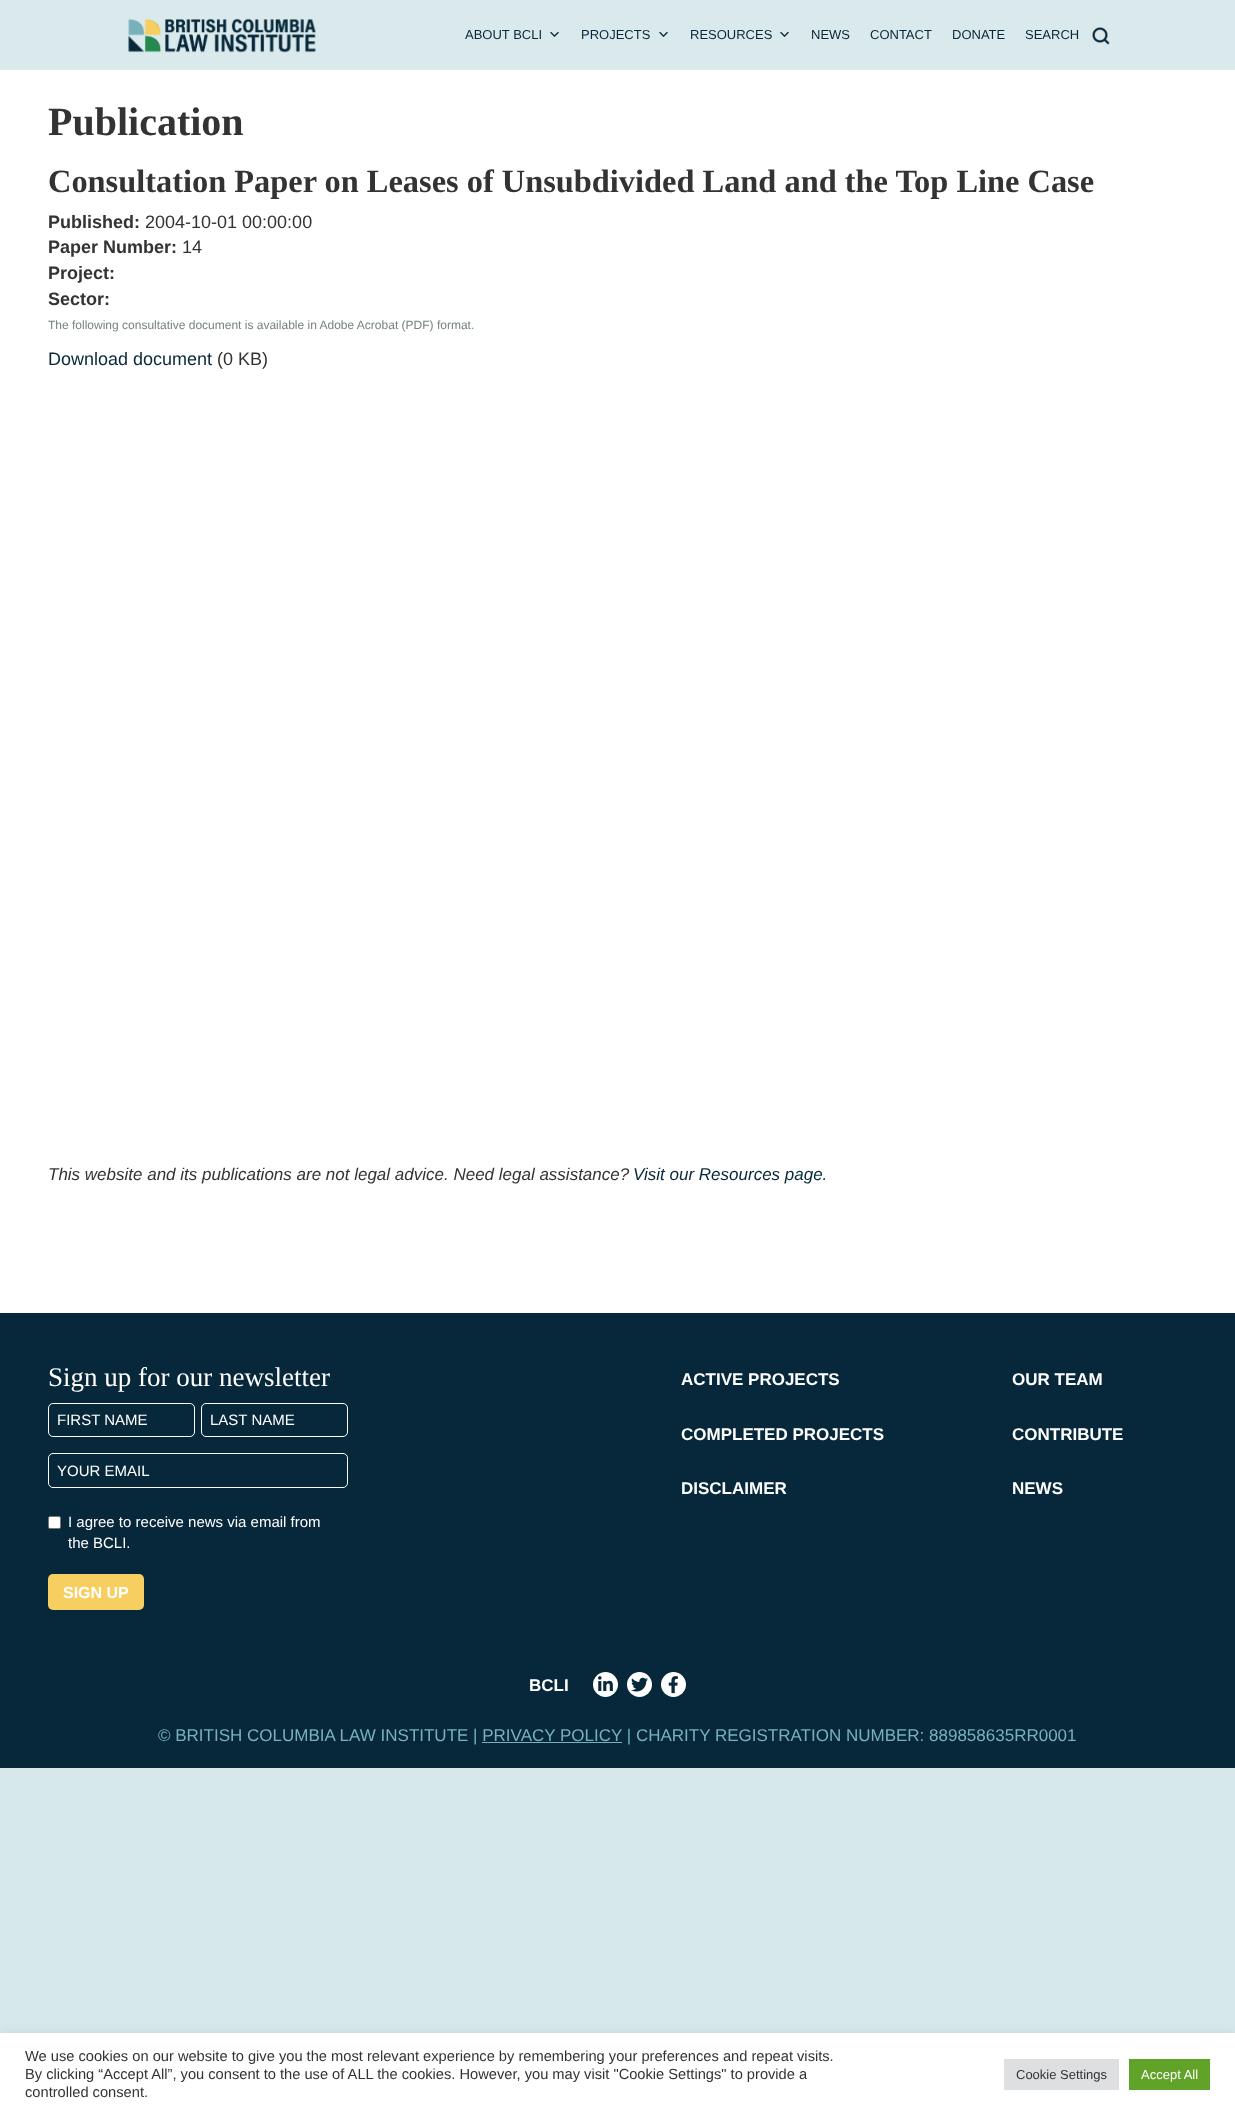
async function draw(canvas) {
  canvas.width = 1235
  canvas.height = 2115
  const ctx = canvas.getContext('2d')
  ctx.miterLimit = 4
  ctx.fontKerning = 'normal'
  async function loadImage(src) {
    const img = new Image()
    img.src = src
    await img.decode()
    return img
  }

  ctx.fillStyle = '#d7e8eb'
  ctx.fillRect(0, 0, 1235, 2115)
  ctx.fillStyle = '#fff'
  ctx.fillRect(0, 70, 1235, 1243)
  ctx.fillStyle = '#daeaec'
  ctx.fillRect(0, 0, 1235, 70)
  ctx.drawImage(await loadImage('image0.png'), 128, 18, 188, 35)
  ctx.font = '13px Liberation Sans'
  ctx.fillStyle = '#07283a'
  ctx.fillText('ABOUT BCLI', 465, 39)
  ctx.drawImage(await loadImage('image1.png'), 550, 32, 9, 5)
  ctx.fillText('PROJECTS', 581, 39)
  ctx.drawImage(await loadImage('image1.png'), 659, 32, 9, 5)
  ctx.fillText('RESOURCES', 690, 39)
  ctx.drawImage(await loadImage('image1.png'), 780, 32, 9, 5)
  ctx.fillText('NEWS', 811, 39)
  ctx.fillText('CONTACT', 870, 39)
  ctx.fillText('DONATE', 952, 39)
  ctx.fillText('SEARCH', 1025, 39)
  ctx.drawImage(await loadImage('image2.png'), 1092, 27, 18, 18)
  ctx.font = 'bold 40px Liberation Serif'
  ctx.fillStyle = '#333'
  ctx.fillText('Publication', 48, 135)
  ctx.font = 'bold 32.4px Liberation Serif'
  ctx.fillText('Consultation Paper on Leases of Unsubdivided Land and the Top Line Case', 48, 192)
  ctx.font = 'bold 18px Liberation Sans'
  ctx.fillText('Published:', 48, 228)
  ctx.font = '18px Liberation Sans'
  ctx.fillText('2004-10-01 00:00:00', 145, 228)
  ctx.font = 'bold 18px Liberation Sans'
  ctx.fillText('Paper Number:', 48, 253)
  ctx.font = '18px Liberation Sans'
  ctx.fillText('14', 182, 253)
  ctx.font = 'bold 18px Liberation Sans'
  ctx.fillText('Project:', 48, 279)
  ctx.fillText('Sector:', 48, 305)
  ctx.font = '12px Liberation Sans'
  ctx.fillStyle = '#768181'
  ctx.fillText('The following consultative document is available in Adobe Acrobat (PDF) format.', 48, 329)
  ctx.font = '18px Liberation Sans'
  ctx.fillStyle = '#07283a'
  ctx.fillText('Download document', 48, 365)
  ctx.fillStyle = '#333'
  ctx.fillText('(0 KB)', 217, 365)
  ctx.font = 'italic 17px Liberation Sans'
  ctx.fillText('This website and its publications are not legal advice. Need legal assistance?', 48, 1180)
  ctx.fillStyle = '#07283a'
  ctx.fillText('Visit our Resources page.', 633, 1180)
  ctx.fillRect(0, 1313, 1235, 359)
  ctx.font = '27px Liberation Serif'
  ctx.fillStyle = '#fff'
  ctx.fillText('Sign up for our newsletter', 48, 1386)
  ctx.beginPath()
  ctx.roundRect(48.5, 1403.5, 146, 33, 4.5)
  ctx.strokeStyle = '#fff'
  ctx.stroke()
  ctx.font = '15px Liberation Sans'
  ctx.fillText('FIRST NAME', 57, 1425)
  ctx.beginPath()
  ctx.roundRect(201.5, 1403.5, 146, 33, 4.5)
  ctx.stroke()
  ctx.fillText('LAST NAME', 210, 1425)
  ctx.beginPath()
  ctx.roundRect(48.5, 1453.5, 299, 34, 4.5)
  ctx.stroke()
  ctx.fillText('YOUR EMAIL', 57, 1476)
  ctx.beginPath()
  ctx.roundRect(48.5, 1516.5, 12, 12, 1.5)
  ctx.fill()
  ctx.strokeStyle = '#767676'
  ctx.stroke()
  ctx.fillText('I agree to receive news via email from', 68, 1527)
  ctx.fillText('the BCLI.', 68, 1548)
  ctx.fillStyle = '#f7cf61'
  ctx.beginPath()
  ctx.roundRect(48, 1574, 96, 36, 5)
  ctx.fill()
  ctx.font = 'bold 16px Liberation Sans'
  ctx.fillStyle = '#fff'
  ctx.fillText('SIGN UP', 63, 1598)
  ctx.font = 'bold 17px Liberation Sans'
  ctx.fillText('ACTIVE PROJECTS', 681, 1385)
  ctx.fillText('COMPLETED PROJECTS', 681, 1440)
  ctx.fillText('DISCLAIMER', 681, 1494)
  ctx.fillText('OUR TEAM', 1012, 1385)
  ctx.fillText('CONTRIBUTE', 1012, 1440)
  ctx.fillText('NEWS', 1012, 1494)
  ctx.fillStyle = '#07283a'
  ctx.fillRect(0, 1672, 1235, 96)
  ctx.fillStyle = '#fff'
  ctx.fillText('BCLI', 529, 1691)
  ctx.beginPath()
  ctx.arc(605.5, 1684.5, 12.5, 0, 2 * Math.PI)
  ctx.fill()
  ctx.drawImage(await loadImage('image3.png'), 598, 1676, 15, 15)
  ctx.beginPath()
  ctx.arc(639.5, 1684.5, 12.5, 0, 2 * Math.PI)
  ctx.fill()
  ctx.drawImage(await loadImage('image4.png'), 631, 1677, 17, 15)
  ctx.beginPath()
  ctx.arc(673.5, 1684.5, 12.5, 0, 2 * Math.PI)
  ctx.fill()
  ctx.drawImage(await loadImage('image5.png'), 668, 1676, 10, 18)
  ctx.font = '17px Liberation Sans'
  ctx.fillStyle = '#78b1bb'
  ctx.fillText('© BRITISH COLUMBIA LAW INSTITUTE | PRIVACY POLICY | CHARITY REGISTRATION NUMBER: 889858635RR0001', 158, 1741)
  ctx.fillRect(482, 1742, 140, 1)
  ctx.fillStyle = '#acabab4d'
  ctx.filter = 'blur(5px)'
  ctx.beginPath()
  ctx.rect(0, 2032, 1235, 82)
  ctx.fill()
  ctx.filter = 'none'
  ctx.fillStyle = '#fff'
  ctx.fillRect(0, 2033, 1235, 82)
  ctx.font = '14.67px Liberation Sans'
  ctx.fillStyle = '#333'
  ctx.fillText('We use cookies on our website to give you the most relevant experience by remembering your preferences and repeat visits.', 25, 2061)
  ctx.fillText('By clicking “Accept All”, you consent to the use of ALL the cookies. However, you may visit "Cookie Settings" to provide a', 25, 2079)
  ctx.fillText('controlled consent.', 25, 2097)
  ctx.fillStyle = '#dedfe0'
  ctx.fillRect(1004, 2059, 115, 31)
  ctx.font = '13px Liberation Sans'
  ctx.fillStyle = '#333'
  ctx.fillText('Cookie Settings', 1016, 2079)
  ctx.fillStyle = '#61a229'
  ctx.fillRect(1129, 2059, 81, 31)
  ctx.fillStyle = '#fff'
  ctx.fillText('Accept All', 1141, 2079)
}

draw(document.querySelector('canvas'))
